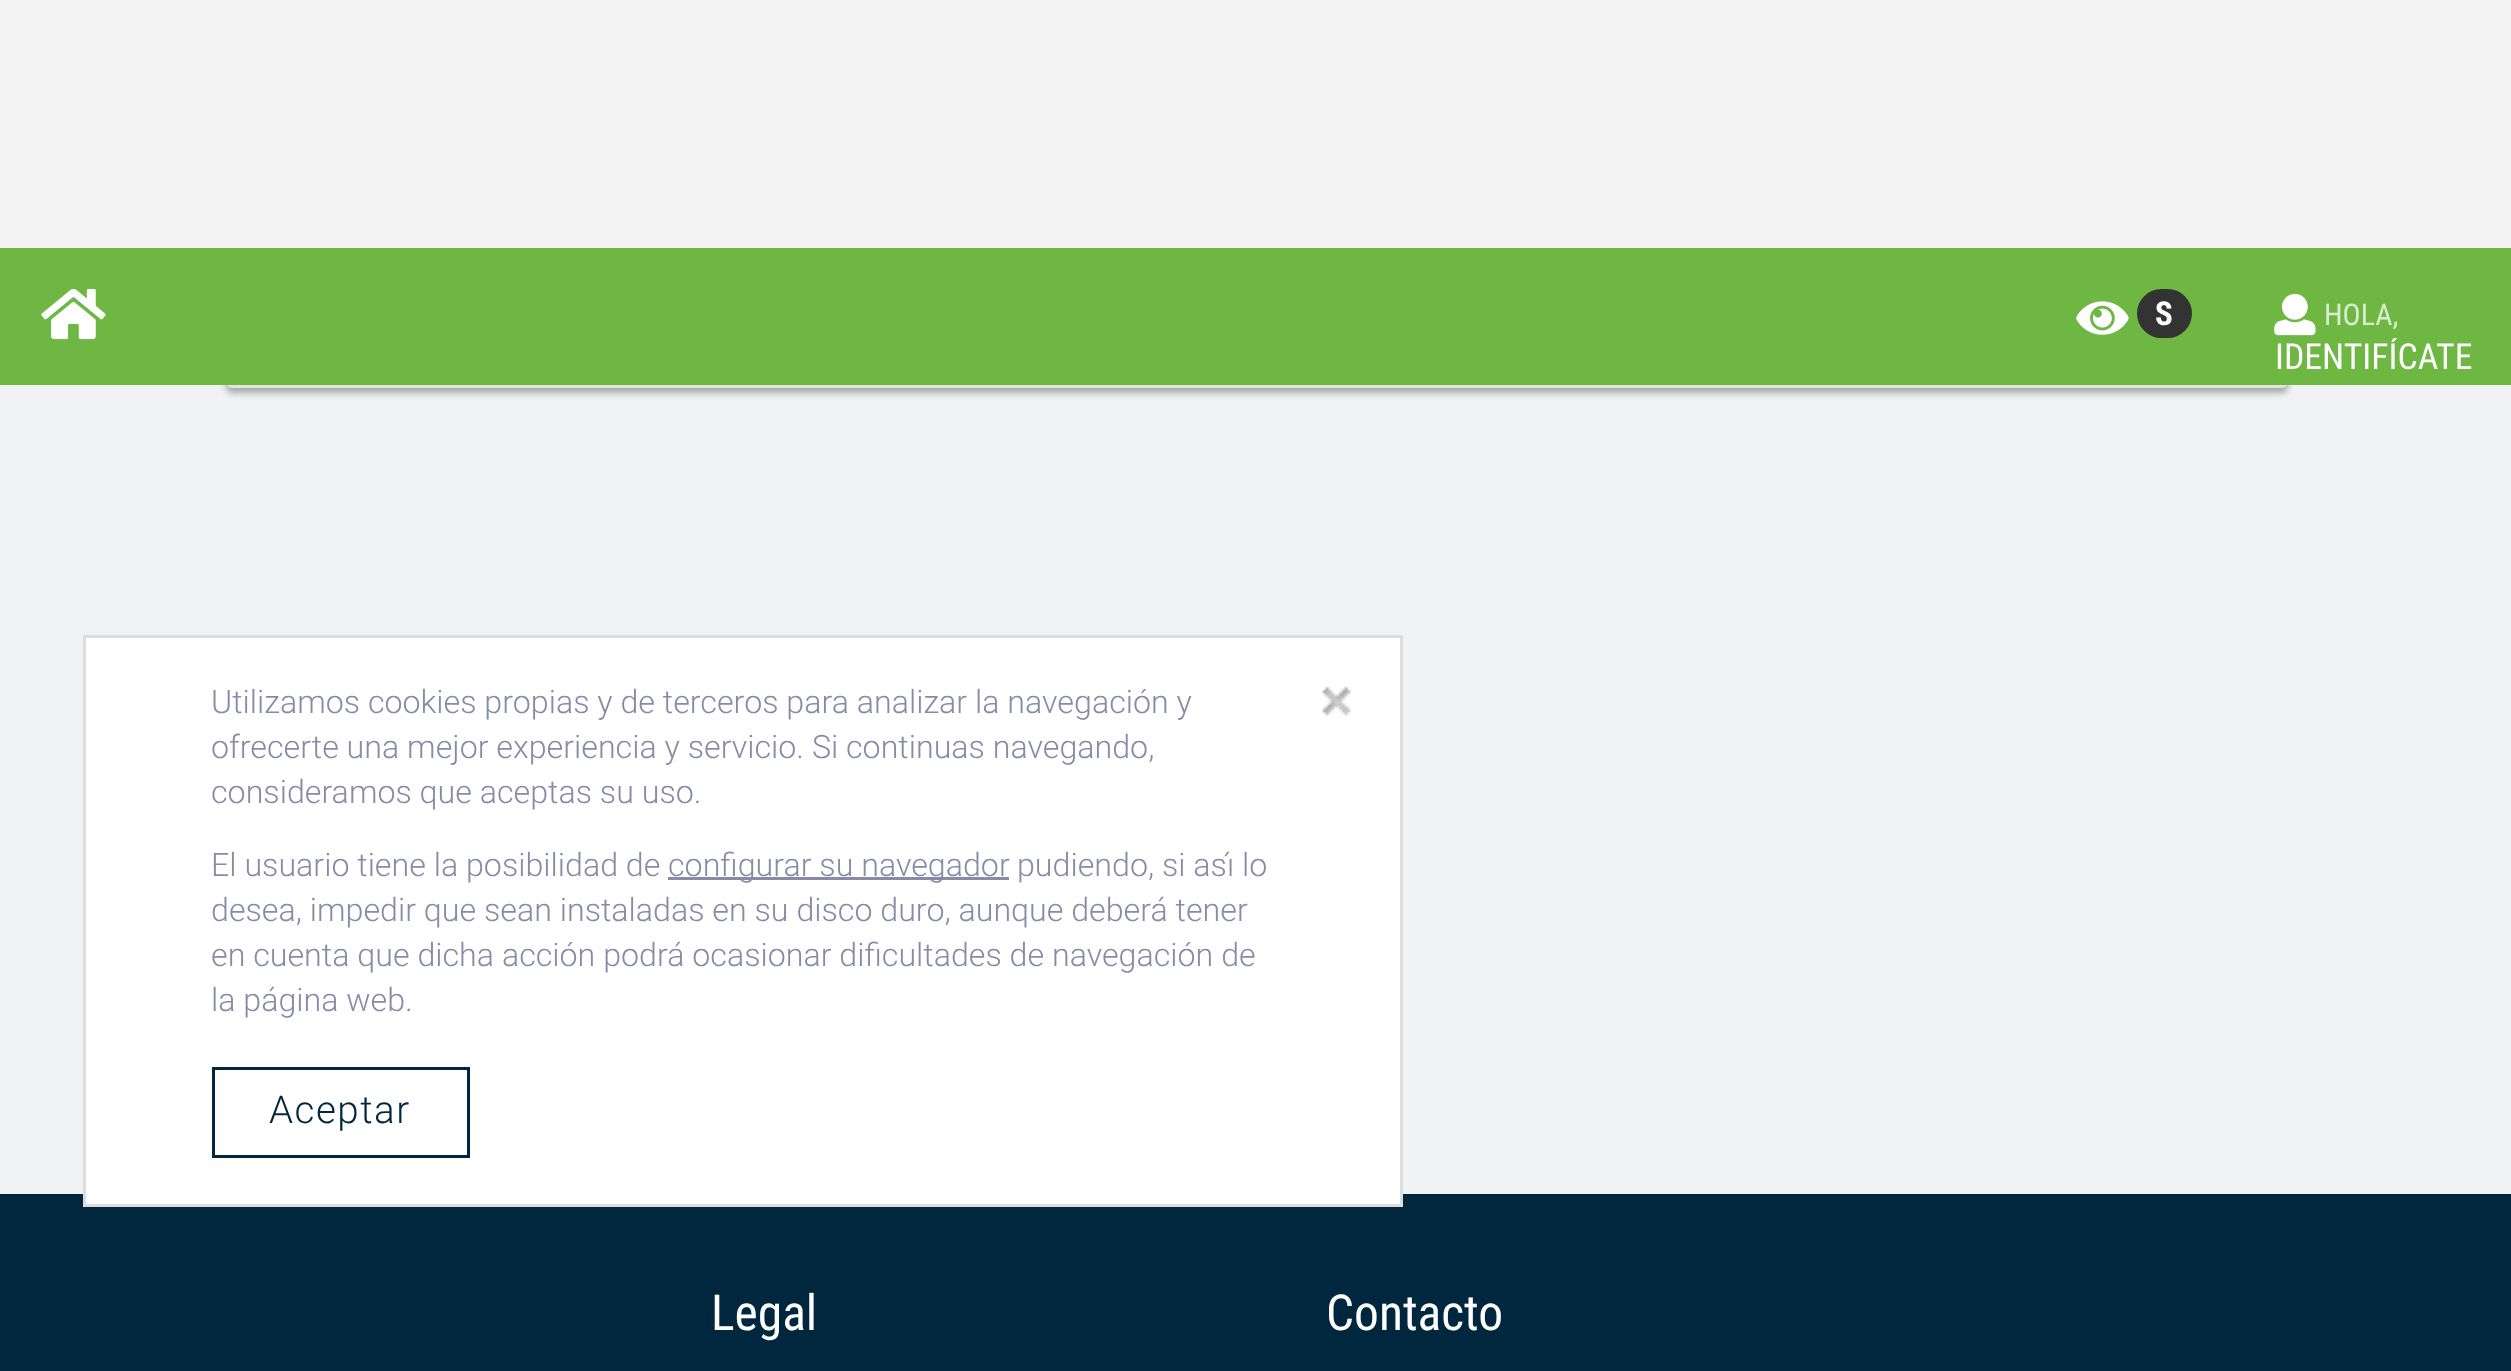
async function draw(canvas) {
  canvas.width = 2511
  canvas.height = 1371
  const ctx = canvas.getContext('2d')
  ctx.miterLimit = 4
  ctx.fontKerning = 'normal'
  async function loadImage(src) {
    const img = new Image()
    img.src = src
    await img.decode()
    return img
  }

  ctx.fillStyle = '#f1f2f3'
  ctx.fillRect(0, 0, 2511, 1371)
  ctx.fillStyle = '#0000004d'
  ctx.filter = 'blur(3px)'
  ctx.beginPath()
  ctx.roundRect(226, -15, 2062, 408, 6)
  ctx.fill()
  ctx.filter = 'none'
  ctx.beginPath()
  ctx.roundRect(227.5, -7.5, 2059, 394, 4.5)
  ctx.strokeStyle = '#e3e3e3'
  ctx.lineWidth = 3
  ctx.stroke()
  ctx.fillStyle = '#f4f4f4'
  ctx.fillRect(0, 0, 2511, 248)
  ctx.fillStyle = '#6db742'
  ctx.fillRect(0, 248, 2511, 137)
  ctx.drawImage(await loadImage('image0.png'), 41, 289, 65, 51)
  ctx.drawImage(await loadImage('image1.png'), 2076, 301, 53, 34)
  ctx.fillStyle = '#333'
  ctx.beginPath()
  ctx.roundRect(2137, 289, 55, 49, 24.5)
  ctx.fill()
  ctx.font = 'bold 33px Roboto Condensed'
  ctx.fillStyle = '#fff'
  ctx.fillText('S', 2155, 325)
  ctx.drawImage(await loadImage('image2.png'), 2274, 293, 42, 43)
  ctx.font = '30px Roboto Condensed'
  ctx.fillStyle = '#dbedd0'
  ctx.fillText('HOLA,', 2324, 325)
  ctx.save()
  ctx.beginPath()
  ctx.rect(2274, 338, 198, 36)
  ctx.clip()
  ctx.font = '35.75px Roboto Condensed'
  ctx.fillStyle = '#fff'
  ctx.fillText('IDENTIFÍCATE', 2275, 369)
  ctx.restore()
  ctx.fillStyle = '#00273d'
  ctx.fillRect(0, 1194, 2511, 177)
  ctx.font = '49.5px Roboto Condensed'
  ctx.fillStyle = '#fff'
  ctx.fillText('Legal', 711, 1330)
  ctx.fillText('Contacto', 1326, 1330)
  ctx.beginPath()
  ctx.rect(84.5, 636.5, 1317, 569)
  ctx.fill()
  ctx.strokeStyle = '#ddd'
  ctx.stroke()
  ctx.font = '300 32.2px Roboto'
  ctx.fillStyle = '#878ba8'
  ctx.fillText('Utilizamos cookies propias y de terceros para analizar la navegación y', 211, 713)
  ctx.fillText('ofrecerte una mejor experiencia y servicio. Si continuas navegando,', 211, 758)
  ctx.fillText('consideramos que aceptas su uso.', 211, 803)
  ctx.drawImage(await loadImage('image3.png'), 1322, 686, 29, 30)
  ctx.fillText('El usuario tiene la posibilidad de', 211, 876)
  ctx.fillRect(668, 877, 341, 3)
  ctx.fillText('configurar su navegador', 668, 876)
  ctx.fillText('pudiendo, si así lo', 1017, 876)
  ctx.fillText('desea, impedir que sean instaladas en su disco duro, aunque deberá tener', 211, 921)
  ctx.fillText('en cuenta que dicha acción podrá ocasionar dificultades de navegación de', 211, 966)
  ctx.fillText('la página web.', 211, 1011)
  ctx.strokeStyle = '#00273d'
  ctx.strokeRect(213.5, 1068.5, 255, 88)
  ctx.letterSpacing = '1.5px'
  ctx.font = '300 38.5px Roboto'
  ctx.fillStyle = '#00273d'
  ctx.fillText('Aceptar', 269, 1123)
}

draw(document.querySelector('canvas'))
